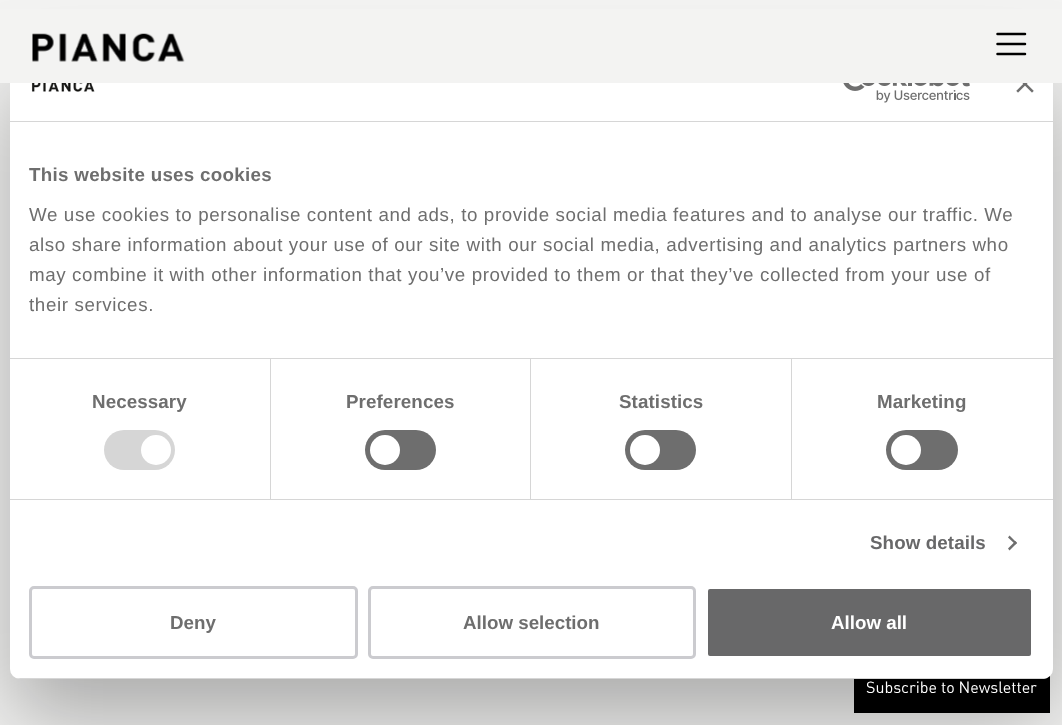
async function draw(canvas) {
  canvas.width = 1062
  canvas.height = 725
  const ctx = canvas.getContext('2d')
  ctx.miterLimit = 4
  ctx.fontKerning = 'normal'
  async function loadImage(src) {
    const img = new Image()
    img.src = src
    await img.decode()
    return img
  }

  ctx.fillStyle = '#f3f3f2'
  ctx.fillRect(0, 0, 1062, 725)
  ctx.fillStyle = '#000'
  ctx.fillRect(854, 676, 196, 37)
  ctx.fillStyle = '#0000004d'
  ctx.filter = 'blur(42.5px)'
  ctx.beginPath()
  ctx.roundRect(10, 86, 1043, 633, 10)
  ctx.fill()
  ctx.filter = 'none'
  ctx.fillStyle = '#fff'
  ctx.beginPath()
  ctx.roundRect(10, 46, 1043, 633, 10)
  ctx.fill()
  ctx.fillStyle = '#f3f3f2'
  ctx.fillRect(0, 9, 1062, 74)
  ctx.drawImage(await loadImage('image0.png'), 32, 33, 153, 29)
  ctx.beginPath()
  ctx.moveTo(997.5, 34)
  ctx.lineTo(1025, 34)
  ctx.moveTo(997.5, 44)
  ctx.lineTo(1025, 44)
  ctx.moveTo(997.5, 54)
  ctx.lineTo(1025, 54)
  ctx.strokeStyle = '#000'
  ctx.lineWidth = 2.5
  ctx.lineCap = 'round'
  ctx.stroke()
  ctx.fillStyle = '#d6d6d6'
  ctx.fillRect(10, 121, 1043, 1)
  ctx.drawImage(await loadImage('image1.png'), 31, 83, 64, 9)
  ctx.drawImage(await loadImage('image2.png'), 843, 83, 127, 20)
  ctx.drawImage(await loadImage('image3.png'), 1016, 83, 18, 10)
  ctx.fillRect(10, 358, 1043, 1)
  ctx.letterSpacing = '0.3px'
  ctx.font = 'bold 18.75px Liberation Sans'
  ctx.fillStyle = '#6e6e6e'
  ctx.fillText('This website uses cookies', 29, 181)
  ctx.letterSpacing = '0.62px'
  ctx.font = '18.75px Liberation Sans'
  ctx.fillText('We use cookies to personalise content and ads, to provide social media features and to analyse our traffic. We', 29, 221)
  ctx.fillText('also share information about your use of our site with our social media, advertising and analytics partners who', 29, 251)
  ctx.fillText('may combine it with other information that you’ve provided to them or that they’ve collected from your use of', 29, 281)
  ctx.fillText('their services.', 29, 311)
  ctx.fillStyle = '#d6d6d6'
  ctx.fillRect(10, 499, 1043, 1)
  ctx.fillRect(270, 359, 1, 140)
  ctx.letterSpacing = '0.1px'
  ctx.font = 'bold 18.75px Liberation Sans'
  ctx.fillStyle = '#6e6e6e'
  ctx.fillText('Necessary', 92, 408)
  ctx.fillStyle = '#d6d6d6'
  ctx.beginPath()
  ctx.roundRect(104, 430, 71, 40, 20)
  ctx.fill()
  ctx.fillStyle = '#fff'
  ctx.beginPath()
  ctx.arc(156, 450, 15, 0, 2 * Math.PI)
  ctx.fill()
  ctx.fillStyle = '#d6d6d6'
  ctx.fillRect(530, 359, 1, 140)
  ctx.fillStyle = '#6e6e6e'
  ctx.fillText('Preferences', 346, 408)
  ctx.beginPath()
  ctx.roundRect(365, 430, 71, 40, 20)
  ctx.fill()
  ctx.fillStyle = '#fff'
  ctx.beginPath()
  ctx.arc(385, 450, 15, 0, 2 * Math.PI)
  ctx.fill()
  ctx.fillStyle = '#d6d6d6'
  ctx.fillRect(791, 359, 1, 140)
  ctx.fillStyle = '#6e6e6e'
  ctx.fillText('Statistics', 619, 408)
  ctx.beginPath()
  ctx.roundRect(625, 430, 71, 40, 20)
  ctx.fill()
  ctx.fillStyle = '#fff'
  ctx.beginPath()
  ctx.arc(645, 450, 15, 0, 2 * Math.PI)
  ctx.fill()
  ctx.fillStyle = '#6e6e6e'
  ctx.fillText('Marketing', 877, 408)
  ctx.beginPath()
  ctx.roundRect(886, 430, 72, 40, 20)
  ctx.fill()
  ctx.fillStyle = '#fff'
  ctx.beginPath()
  ctx.arc(906, 450, 15, 0, 2 * Math.PI)
  ctx.fill()
  ctx.fillStyle = '#686869'
  ctx.fillText('Show details', 870, 549)
  ctx.fillStyle = '#6e6e6e'
  ctx.beginPath()
  ctx.moveTo(1009.5, 535.5)
  ctx.lineTo(1017, 543)
  ctx.lineTo(1015.5, 544.5)
  ctx.lineTo(1008, 537.5)
  ctx.closePath()
  ctx.fill()
  ctx.beginPath()
  ctx.moveTo(1015.5, 541)
  ctx.lineTo(1017, 543)
  ctx.lineTo(1009.5, 550.5)
  ctx.lineTo(1008, 548.5)
  ctx.closePath()
  ctx.fill()
  ctx.save()
  ctx.beginPath()
  ctx.roundRect(10, 46, 1043, 633, 10)
  ctx.clip()
  ctx.fillStyle = '#d6d6d6'
  ctx.fillRect(10, 678, 1043, 1)
  ctx.restore()
  ctx.beginPath()
  ctx.roundRect(30.5, 587.5, 326, 70, 3.5)
  ctx.strokeStyle = '#cbcbcf'
  ctx.lineWidth = 3
  ctx.stroke()
  ctx.letterSpacing = '0px'
  ctx.fillText('Deny', 170, 629)
  ctx.beginPath()
  ctx.roundRect(369.5, 587.5, 325, 70, 3.5)
  ctx.stroke()
  ctx.fillText('Allow selection', 463, 629)
  ctx.fillStyle = '#686869'
  ctx.beginPath()
  ctx.roundRect(706.5, 587.5, 326, 70, 3.5)
  ctx.fill()
  ctx.strokeStyle = '#fff'
  ctx.stroke()
  ctx.fillStyle = '#fff'
  ctx.fillText('Allow all', 831, 629)
  ctx.font = '16px DIN'
  ctx.fillText('Subscribe to Newsletter', 866, 693)
}

draw(document.querySelector('canvas'))
